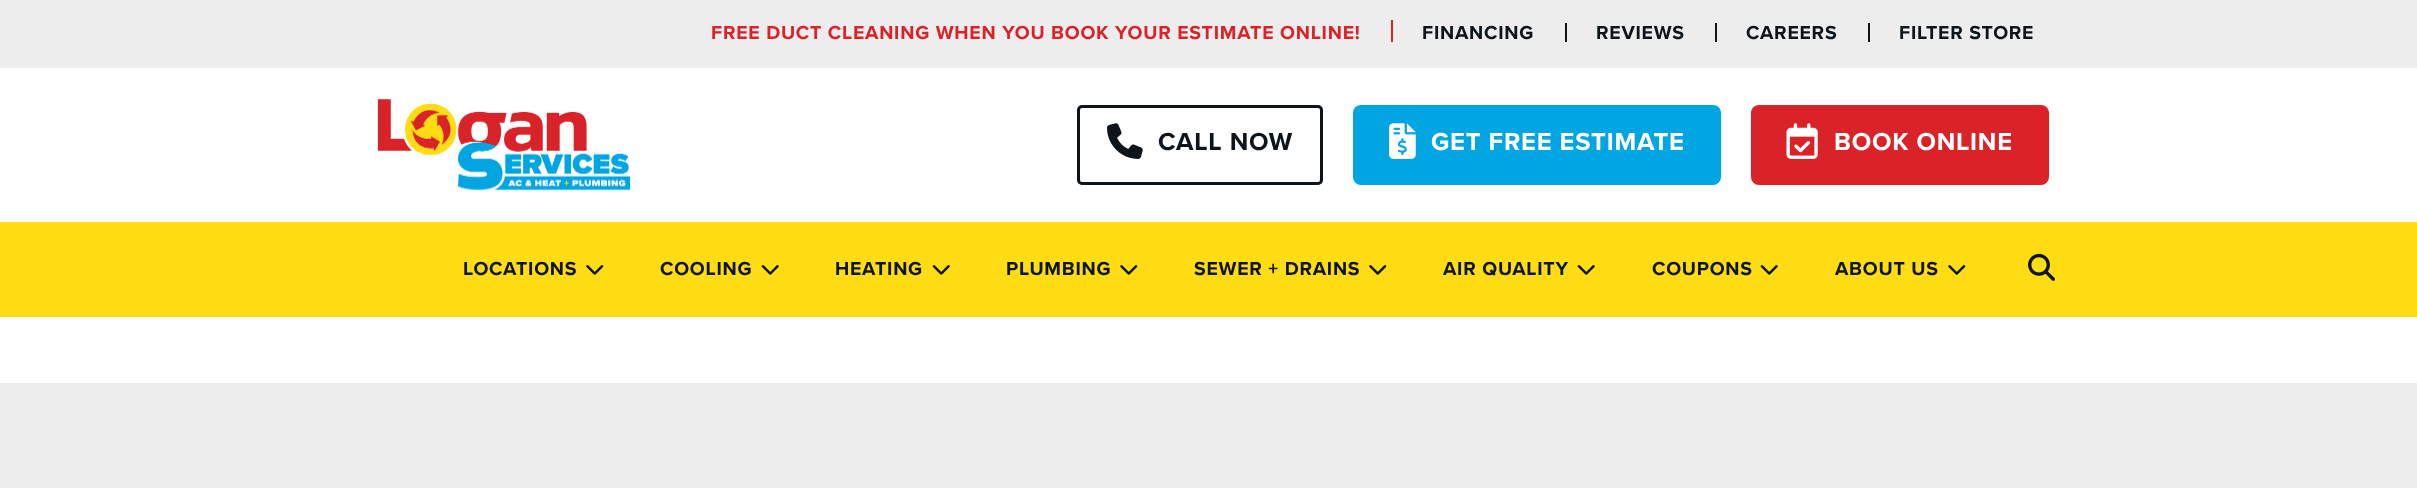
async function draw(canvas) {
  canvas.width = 2417
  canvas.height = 488
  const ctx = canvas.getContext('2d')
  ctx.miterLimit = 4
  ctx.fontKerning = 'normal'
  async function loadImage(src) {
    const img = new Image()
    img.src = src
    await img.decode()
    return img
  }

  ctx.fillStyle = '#fff'
  ctx.fillRect(0, 0, 2417, 488)
  ctx.fillStyle = '#ededed'
  ctx.fillRect(0, 0, 2417, 68)
  ctx.fillStyle = '#da2328'
  ctx.fillRect(1391, 20, 2, 22)
  ctx.letterSpacing = '0.75px'
  ctx.font = 'bold 19.5px Proxima Nova'
  ctx.fillText('FREE DUCT CLEANING WHEN YOU BOOK YOUR ESTIMATE ONLINE!', 711, 39)
  ctx.fillStyle = '#0d151a'
  ctx.fillRect(1565, 23, 2, 19)
  ctx.fillText('FINANCING', 1422, 39)
  ctx.fillRect(1715, 23, 2, 19)
  ctx.fillText('REVIEWS', 1596, 39)
  ctx.fillRect(1868, 23, 2, 19)
  ctx.fillText('CAREERS', 1746, 39)
  ctx.fillText('FILTER STORE', 1899, 39)
  ctx.drawImage(await loadImage('image0.png'), 377, 99, 254, 92)
  ctx.beginPath()
  ctx.roundRect(1078.5, 106.5, 243, 77, 3.5)
  ctx.strokeStyle = '#0d151a'
  ctx.lineWidth = 3
  ctx.stroke()
  ctx.drawImage(await loadImage('image1.png'), 1107, 123, 36, 36)
  ctx.font = 'bold 25.5px Proxima Nova'
  ctx.fillText('CALL NOW', 1158, 150)
  ctx.fillStyle = '#00a5e2'
  ctx.beginPath()
  ctx.roundRect(1353, 105, 368, 80, 8)
  ctx.fill()
  ctx.drawImage(await loadImage('image2.png'), 1389, 123, 27, 36)
  ctx.fillStyle = '#fff'
  ctx.fillText('GET FREE ESTIMATE', 1431, 150)
  ctx.fillStyle = '#da2328'
  ctx.beginPath()
  ctx.roundRect(1751, 105, 298, 80, 8)
  ctx.fill()
  ctx.drawImage(await loadImage('image3.png'), 1786, 123, 32, 36)
  ctx.fillStyle = '#fff'
  ctx.fillText('BOOK ONLINE', 1834, 150)
  ctx.fillStyle = '#ffdc13'
  ctx.fillRect(0, 222, 2417, 95)
  ctx.font = 'bold 19.5px Proxima Nova'
  ctx.fillStyle = '#0d151a'
  ctx.fillText('LOCATIONS', 463, 275)
  ctx.drawImage(await loadImage('image4.png'), 586, 265, 18, 10)
  ctx.fillText('COOLING', 660, 275)
  ctx.drawImage(await loadImage('image5.png'), 761, 265, 18, 10)
  ctx.fillText('HEATING', 835, 275)
  ctx.drawImage(await loadImage('image5.png'), 932, 265, 18, 10)
  ctx.fillText('PLUMBING', 1006, 275)
  ctx.drawImage(await loadImage('image4.png'), 1120, 265, 18, 10)
  ctx.fillText('SEWER + DRAINS', 1194, 275)
  ctx.drawImage(await loadImage('image4.png'), 1369, 265, 18, 10)
  ctx.fillText('AIR QUALITY', 1443, 275)
  ctx.drawImage(await loadImage('image5.png'), 1577, 265, 18, 10)
  ctx.fillText('COUPONS', 1652, 275)
  ctx.drawImage(await loadImage('image5.png'), 1760, 265, 18, 10)
  ctx.fillText('ABOUT US', 1835, 275)
  ctx.drawImage(await loadImage('image4.png'), 1948, 265, 18, 10)
  ctx.drawImage(await loadImage('image6.png'), 2028, 253, 27, 28)
  ctx.fillStyle = '#ededed'
  ctx.fillRect(0, 383, 2417, 105)
}

draw(document.querySelector('canvas'))
